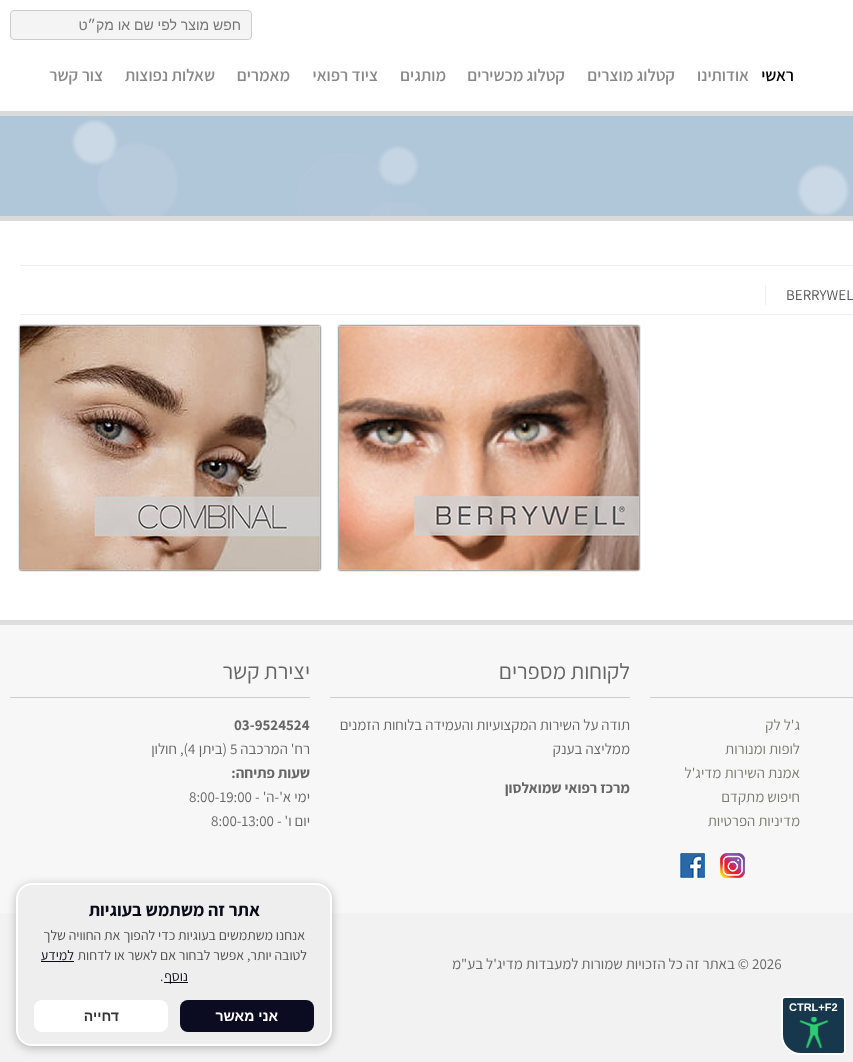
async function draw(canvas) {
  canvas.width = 853
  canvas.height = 1062
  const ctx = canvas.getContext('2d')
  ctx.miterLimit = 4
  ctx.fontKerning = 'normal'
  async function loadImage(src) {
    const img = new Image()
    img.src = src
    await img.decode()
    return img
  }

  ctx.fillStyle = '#f2f2f2'
  ctx.fillRect(0, 0, 853, 1062)
  ctx.fillStyle = '#fff'
  ctx.fillRect(0, 0, 853, 111)
  ctx.fillStyle = '#f4f4f4'
  ctx.beginPath()
  ctx.roundRect(10.5, 10.5, 241, 29, 3.5)
  ctx.fill()
  ctx.strokeStyle = '#ccc'
  ctx.stroke()
  ctx.direction = 'rtl'
  ctx.font = '14px Liberation Sans'
  ctx.fillStyle = '#757575'
  ctx.fillText('חפש מוצר לפי שם או מק״ט', 241, 30)
  ctx.font = '600 17px Assistant'
  ctx.fillStyle = '#000'
  ctx.fillText('ראשי', 794, 81)
  ctx.fillStyle = '#888'
  ctx.fillText('אודותינו', 749, 81)
  ctx.fillText('קטלוג מוצרים', 675, 81)
  ctx.fillText('קטלוג מכשירים', 565, 81)
  ctx.fillText('מותגים', 446, 81)
  ctx.fillText('ציוד רפואי', 378, 81)
  ctx.fillText('מאמרים', 290, 81)
  ctx.fillText('שאלות נפוצות', 215, 81)
  ctx.fillText('צור קשר', 103, 81)
  ctx.fillStyle = '#dadada'
  ctx.fillRect(0, 111, 853, 5)
  ctx.fillRect(0, 216, 853, 5)
  ctx.fillStyle = '#b0c6d9'
  ctx.fillRect(0, 116, 853, 100)
  ctx.drawImage(await loadImage('image0.png'), 71, 119, 779, 97)
  ctx.drawImage(await loadImage('image1.png'), 370, 203, 59, 13)
  ctx.drawImage(await loadImage('image2.png'), 297, 154, 94, 62)
  ctx.drawImage(await loadImage('image3.png'), 97, 143, 81, 73)
  ctx.fillStyle = '#fff'
  ctx.fillRect(0, 221, 853, 399)
  ctx.fillStyle = '#eee'
  ctx.fillRect(20, 265, 833, 1)
  ctx.fillRect(20, 314, 833, 1)
  ctx.fillRect(765, 285, 1, 20)
  ctx.direction = 'ltr'
  ctx.font = '15px Assistant'
  ctx.fillStyle = '#555'
  ctx.fillText('BERRYWEL', 786, 300)
  ctx.fillStyle = '#000'
  ctx.filter = 'blur(1px)'
  ctx.beginPath()
  ctx.rect(339, 326, 300, 244)
  ctx.fill()
  ctx.filter = 'none'
  ctx.drawImage(await loadImage('image4.png'), 339, 326, 300, 244)
  ctx.filter = 'blur(1px)'
  ctx.beginPath()
  ctx.rect(20, 326, 300, 244)
  ctx.fill()
  ctx.filter = 'none'
  ctx.drawImage(await loadImage('image5.png'), 20, 326, 300, 244)
  ctx.fillStyle = '#f7f7f7'
  ctx.fillRect(0, 625, 853, 288)
  ctx.fillStyle = '#dedede'
  ctx.fillRect(0, 620, 853, 5)
  ctx.fillStyle = '#cecece'
  ctx.fillRect(650, 697, 203, 1)
  ctx.direction = 'rtl'
  ctx.fillStyle = '#797c6f'
  ctx.fillText('ג\'ל לק', 800, 730)
  ctx.fillText('לופות ומנורות', 800, 754)
  ctx.fillText('אמנת השירות מדיג\'ל', 800, 778)
  ctx.fillText('חיפוש מתקדם', 800, 802)
  ctx.fillText('מדיניות הפרטיות', 800, 826)
  ctx.drawImage(await loadImage('image6.png'), 720, 853, 25, 25)
  ctx.drawImage(await loadImage('image7.png'), 680, 853, 25, 25)
  ctx.fillStyle = '#cecece'
  ctx.fillRect(330, 697, 300, 1)
  ctx.font = '22.5px Assistant'
  ctx.fillStyle = '#666'
  ctx.fillText('לקוחות מספרים', 630, 679)
  ctx.font = '15px Assistant'
  ctx.fillText('תודה על השירות המקצועיות והעמידה בלוחות הזמנים', 630, 730)
  ctx.fillText('ממליצה בענק', 630, 754)
  ctx.font = 'bold 15px Assistant'
  ctx.fillText('מרכז רפואי שמואלסון', 630, 793)
  ctx.fillStyle = '#cecece'
  ctx.fillRect(10, 697, 300, 1)
  ctx.font = '22.5px Assistant'
  ctx.fillStyle = '#666'
  ctx.fillText('יצירת קשר', 310, 679)
  ctx.direction = 'ltr'
  ctx.font = 'bold 15px Assistant'
  ctx.fillText('03-9524524', 234, 730)
  ctx.direction = 'rtl'
  ctx.font = '15px Assistant'
  ctx.fillText('רח\' המרכבה', 310, 754)
  ctx.direction = 'ltr'
  ctx.fillText('5', 230, 754)
  ctx.direction = 'rtl'
  ctx.fillText('(ביתן', 227, 754)
  ctx.direction = 'ltr'
  ctx.fillText('4', 188, 754)
  ctx.direction = 'rtl'
  ctx.fillText('), חולון', 188, 754)
  ctx.font = 'bold 15px Assistant'
  ctx.fillText('שעות פתיחה:', 310, 778)
  ctx.font = '15px Assistant'
  ctx.fillText('ימי א\'-ה\' -', 310, 802)
  ctx.direction = 'ltr'
  ctx.fillText('8:00-19:00', 189, 802)
  ctx.direction = 'rtl'
  ctx.fillText('יום ו\' -', 310, 826)
  ctx.direction = 'ltr'
  ctx.fillText('8:00-13:00', 211, 826)
  ctx.fillText('2026', 752, 969)
  ctx.direction = 'rtl'
  ctx.fillText('© באתר זה כל הזכויות שמורות למעבדות מדיג\'ל בע"מ', 749, 969)
  ctx.fillStyle = '#00000040'
  ctx.filter = 'blur(5px)'
  ctx.beginPath()
  ctx.roundRect(16, 885, 316, 163, 16)
  ctx.fill()
  ctx.filter = 'none'
  ctx.fillStyle = '#eee'
  ctx.beginPath()
  ctx.roundRect(17, 884, 314, 161, 15)
  ctx.fill()
  ctx.strokeStyle = '#fff'
  ctx.lineWidth = 2
  ctx.stroke()
  ctx.font = 'bold 18px Assistant'
  ctx.fillStyle = '#0a0a18'
  ctx.fillText('אתר זה משתמש בעוגיות', 260, 916)
  ctx.font = '14px Assistant'
  ctx.fillStyle = '#4d4d4d'
  ctx.fillText('אנחנו משתמשים בעוגיות כדי להפוך את החוויה שלך', 305, 940)
  ctx.fillText('לטובה יותר, אפשר לבחור אם לאשר או לדחות', 307, 960)
  ctx.fillStyle = '#0a0a18'
  ctx.fillText('למידע', 74, 960)
  ctx.fillRect(41, 961, 33, 1)
  ctx.fillRect(164, 982, 24, 1)
  ctx.fillText('נוסף', 188, 981)
  ctx.direction = 'ltr'
  ctx.fillStyle = '#4d4d4d'
  ctx.fillText('.', 160, 981)
  ctx.fillStyle = '#0b0b22'
  ctx.beginPath()
  ctx.roundRect(180, 1000, 134, 32, 8)
  ctx.fill()
  ctx.direction = 'rtl'
  ctx.font = 'bold 14px Liberation Sans'
  ctx.fillStyle = '#fff'
  ctx.fillText('אני מאשר', 278, 1021)
  ctx.beginPath()
  ctx.roundRect(34, 1000, 134, 32, 8)
  ctx.fill()
  ctx.fillStyle = '#333'
  ctx.fillText('דחייה', 119, 1021)
  ctx.fillStyle = '#17384c'
  ctx.beginPath()
  ctx.roundRect(782, 997, 63, 57, [3, 3, 3, 19])
  ctx.fill()
  ctx.stroke()
  ctx.direction = 'ltr'
  ctx.font = 'bold 11px Liberation Sans'
  ctx.fillStyle = '#fff'
  ctx.fillText('CTRL+F2', 789, 1011)
  ctx.drawImage(await loadImage('image8.png'), 799, 1017, 30, 32)
}

draw(document.querySelector('canvas'))
